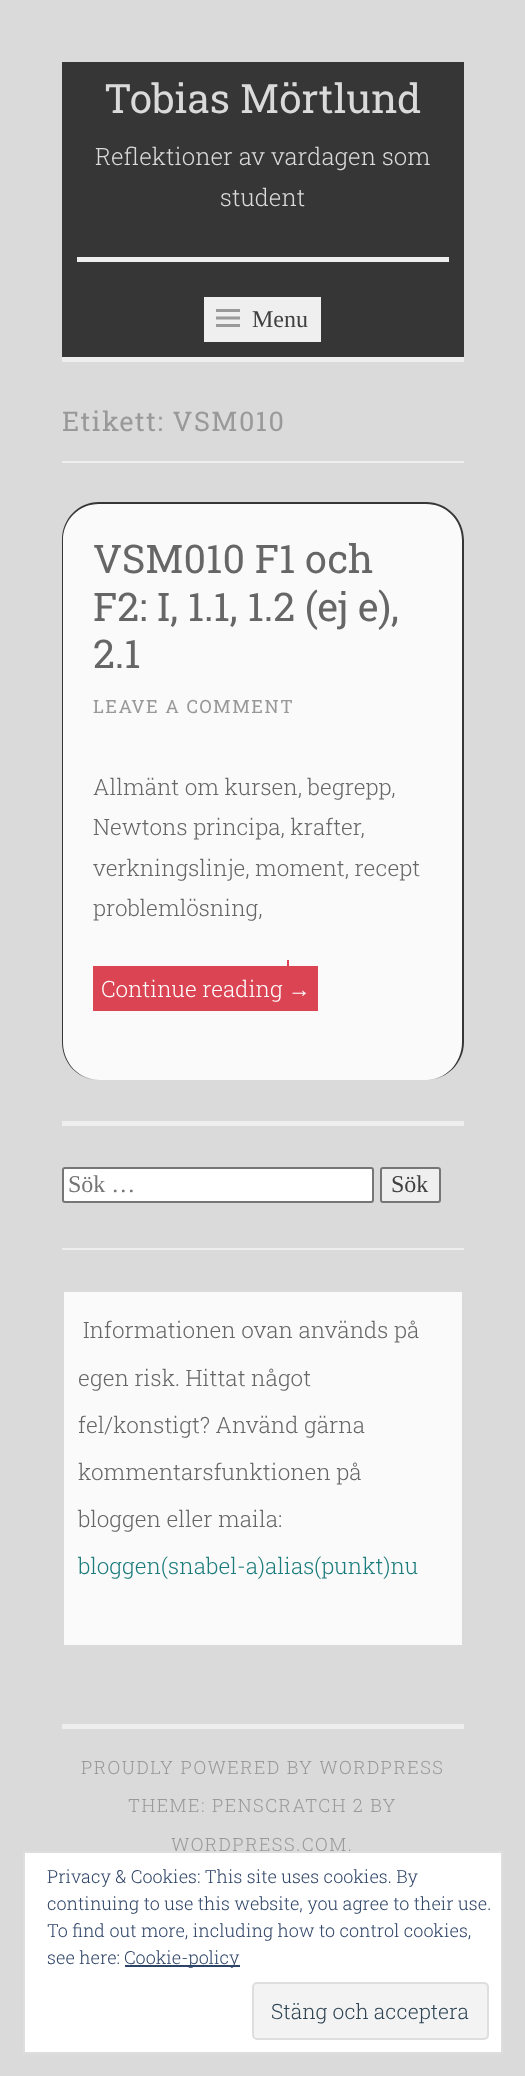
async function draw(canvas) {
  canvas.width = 525
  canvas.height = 2076
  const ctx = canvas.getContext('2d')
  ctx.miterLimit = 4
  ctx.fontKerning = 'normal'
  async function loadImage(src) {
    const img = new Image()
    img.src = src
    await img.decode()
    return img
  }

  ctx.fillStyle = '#dadada'
  ctx.fillRect(0, 0, 525, 2076)
  ctx.fillStyle = '#363636'
  ctx.fillRect(62, 62, 402, 295)
  ctx.fillStyle = '#eee'
  ctx.fillRect(62, 357, 402, 5)
  ctx.font = '40.5px Roboto Slab'
  ctx.fillStyle = '#dadada'
  ctx.fillText('Tobias Mörtlund', 104, 113)
  ctx.font = '300 24px Roboto Slab'
  ctx.fillText('Reflektioner av vardagen som', 95, 165)
  ctx.fillText('student', 220, 206)
  ctx.fillStyle = '#eee'
  ctx.fillRect(77, 257, 372, 5)
  ctx.fillStyle = '#efefef'
  ctx.fillRect(204, 297, 117, 45)
  ctx.drawImage(await loadImage('image0.png'), 216, 309, 24, 18)
  ctx.font = '24px Liberation Serif'
  ctx.fillStyle = '#404040'
  ctx.fillText('Menu', 252, 327)
  ctx.fillStyle = '#eee'
  ctx.fillRect(62, 461, 402, 2)
  ctx.letterSpacing = '1.5px'
  ctx.font = '27px Roboto Slab'
  ctx.fillStyle = '#999'
  ctx.fillText('Etikett: VSM010', 62, 431)
  ctx.fillStyle = '#fafafa'
  ctx.beginPath()
  ctx.roundRect(62, 503, 402, 577, 38)
  ctx.fill()
  ctx.fillStyle = '#363636'
  ctx.beginPath()
  ctx.moveTo(99, 502)
  ctx.lineTo(426, 502)
  ctx.bezierCurveTo(447, 502, 464, 519, 464, 540)
  ctx.lineTo(464, 1042)
  ctx.bezierCurveTo(464, 1063, 447, 1080, 426, 1080)
  ctx.lineTo(99, 1080)
  ctx.bezierCurveTo(78, 1080, 62, 1063, 62, 1042)
  ctx.lineTo(62, 540)
  ctx.bezierCurveTo(62, 519, 78, 502, 99, 502)
  ctx.closePath()
  ctx.moveTo(99, 504)
  ctx.lineTo(426, 504)
  ctx.bezierCurveTo(446, 504, 462, 520, 462, 540)
  ctx.lineTo(462, 1042)
  ctx.bezierCurveTo(462, 1063, 446, 1080, 426, 1080)
  ctx.lineTo(99, 1080)
  ctx.bezierCurveTo(79, 1080, 63, 1063, 63, 1042)
  ctx.lineTo(63, 540)
  ctx.bezierCurveTo(63, 520, 79, 504, 99, 504)
  ctx.closePath()
  ctx.fill('evenodd')
  ctx.letterSpacing = '0px'
  ctx.font = '39.5px Roboto Slab'
  ctx.fillStyle = '#666'
  ctx.fillText('VSM010 F1 och', 93, 573)
  ctx.fillText('F2: I, 1.1, 1.2 (ej e),', 93, 621)
  ctx.fillText('2.1', 93, 668)
  ctx.letterSpacing = '1.5px'
  ctx.font = '18.25px Roboto Slab'
  ctx.fillStyle = '#999'
  ctx.fillText('LEAVE A COMMENT', 93, 713)
  ctx.letterSpacing = '0px'
  ctx.font = '300 22.5px Roboto Slab'
  ctx.fillStyle = '#666'
  ctx.fillText('Allmänt om kursen, begrepp,', 93, 795)
  ctx.fillText('Newtons principa, krafter,', 93, 835)
  ctx.fillText('verkningslinje, moment, recept', 93, 876)
  ctx.fillText('problemlösning,', 93, 916)
  ctx.fillStyle = '#da4453'
  ctx.fillRect(93, 966, 195, 45)
  ctx.fillStyle = '#fff'
  ctx.fillText('Continue reading', 101, 997)
  ctx.fillStyle = '#da4453'
  ctx.fillRect(287, 960, 2, 17)
  ctx.fillRect(288, 966, 30, 45)
  ctx.font = '22.5px Liberation Serif'
  ctx.fillStyle = '#fff'
  ctx.fillText('→', 288, 997)
  ctx.fillStyle = '#eee'
  ctx.fillRect(62, 1121, 402, 5)
  ctx.fillRect(62, 1248, 402, 2)
  ctx.fillStyle = '#fff'
  ctx.beginPath()
  ctx.roundRect(63, 1168, 310, 34, 2)
  ctx.fill()
  ctx.strokeStyle = '#767676'
  ctx.lineWidth = 2
  ctx.stroke()
  ctx.font = '24px Liberation Serif'
  ctx.fillStyle = '#757575'
  ctx.fillText('Sök …', 68, 1192)
  ctx.fillStyle = '#efefef'
  ctx.beginPath()
  ctx.roundRect(381, 1168, 59, 34, 2)
  ctx.fill()
  ctx.stroke()
  ctx.fillStyle = '#404040'
  ctx.fillText('Sök', 391, 1192)
  ctx.fillStyle = '#fafafa'
  ctx.fillRect(64, 1292, 398, 353)
  ctx.font = '300 22.5px Roboto Slab'
  ctx.fillStyle = '#666'
  ctx.fillText('Informationen ovan används på', 83, 1338)
  ctx.fillText('egen risk. Hittat något', 78, 1386)
  ctx.fillText('fel/konstigt? Använd gärna', 78, 1433)
  ctx.fillText('kommentarsfunktionen på', 78, 1480)
  ctx.fillText('bloggen eller maila:', 78, 1527)
  ctx.fillStyle = '#1c7c7c'
  ctx.fillText('bloggen(snabel-a)alias(punkt)nu', 78, 1574)
  ctx.fillStyle = '#eee'
  ctx.fillRect(62, 1724, 402, 5)
  ctx.letterSpacing = '1.5px'
  ctx.font = '300 18.25px Roboto Slab'
  ctx.fillStyle = '#999'
  ctx.fillText('PROUDLY POWERED BY WORDPRESS', 81, 1774)
  ctx.fillText('THEME: PENSCRATCH 2 BY', 128, 1812)
  ctx.fillText('WORDPRESS.COM.', 171, 1851)
  ctx.fillStyle = '#fff'
  ctx.beginPath()
  ctx.rect(24, 1852, 478, 201)
  ctx.fill()
  ctx.strokeStyle = '#dedede'
  ctx.stroke()
  ctx.letterSpacing = '0px'
  ctx.font = '300 18px Roboto Slab'
  ctx.fillStyle = '#2e4467'
  ctx.fillText('Privacy & Cookies: This site uses cookies. By', 47, 1883)
  ctx.fillText('continuing to use this website, you agree to their use.', 47, 1910)
  ctx.fillText('To find out more, including how to control cookies,', 47, 1937)
  ctx.fillText('see here:', 47, 1964)
  ctx.fillRect(125, 1965, 115, 2)
  ctx.fillText('Cookie-policy', 124, 1964)
  ctx.fillStyle = '#f3f3f3'
  ctx.beginPath()
  ctx.roundRect(253, 1983, 235, 56, 4)
  ctx.fill()
  ctx.stroke()
  ctx.font = '300 21px Roboto Slab'
  ctx.fillStyle = '#2e4453'
  ctx.fillText('Stäng och acceptera', 271, 2019)
}

draw(document.querySelector('canvas'))
